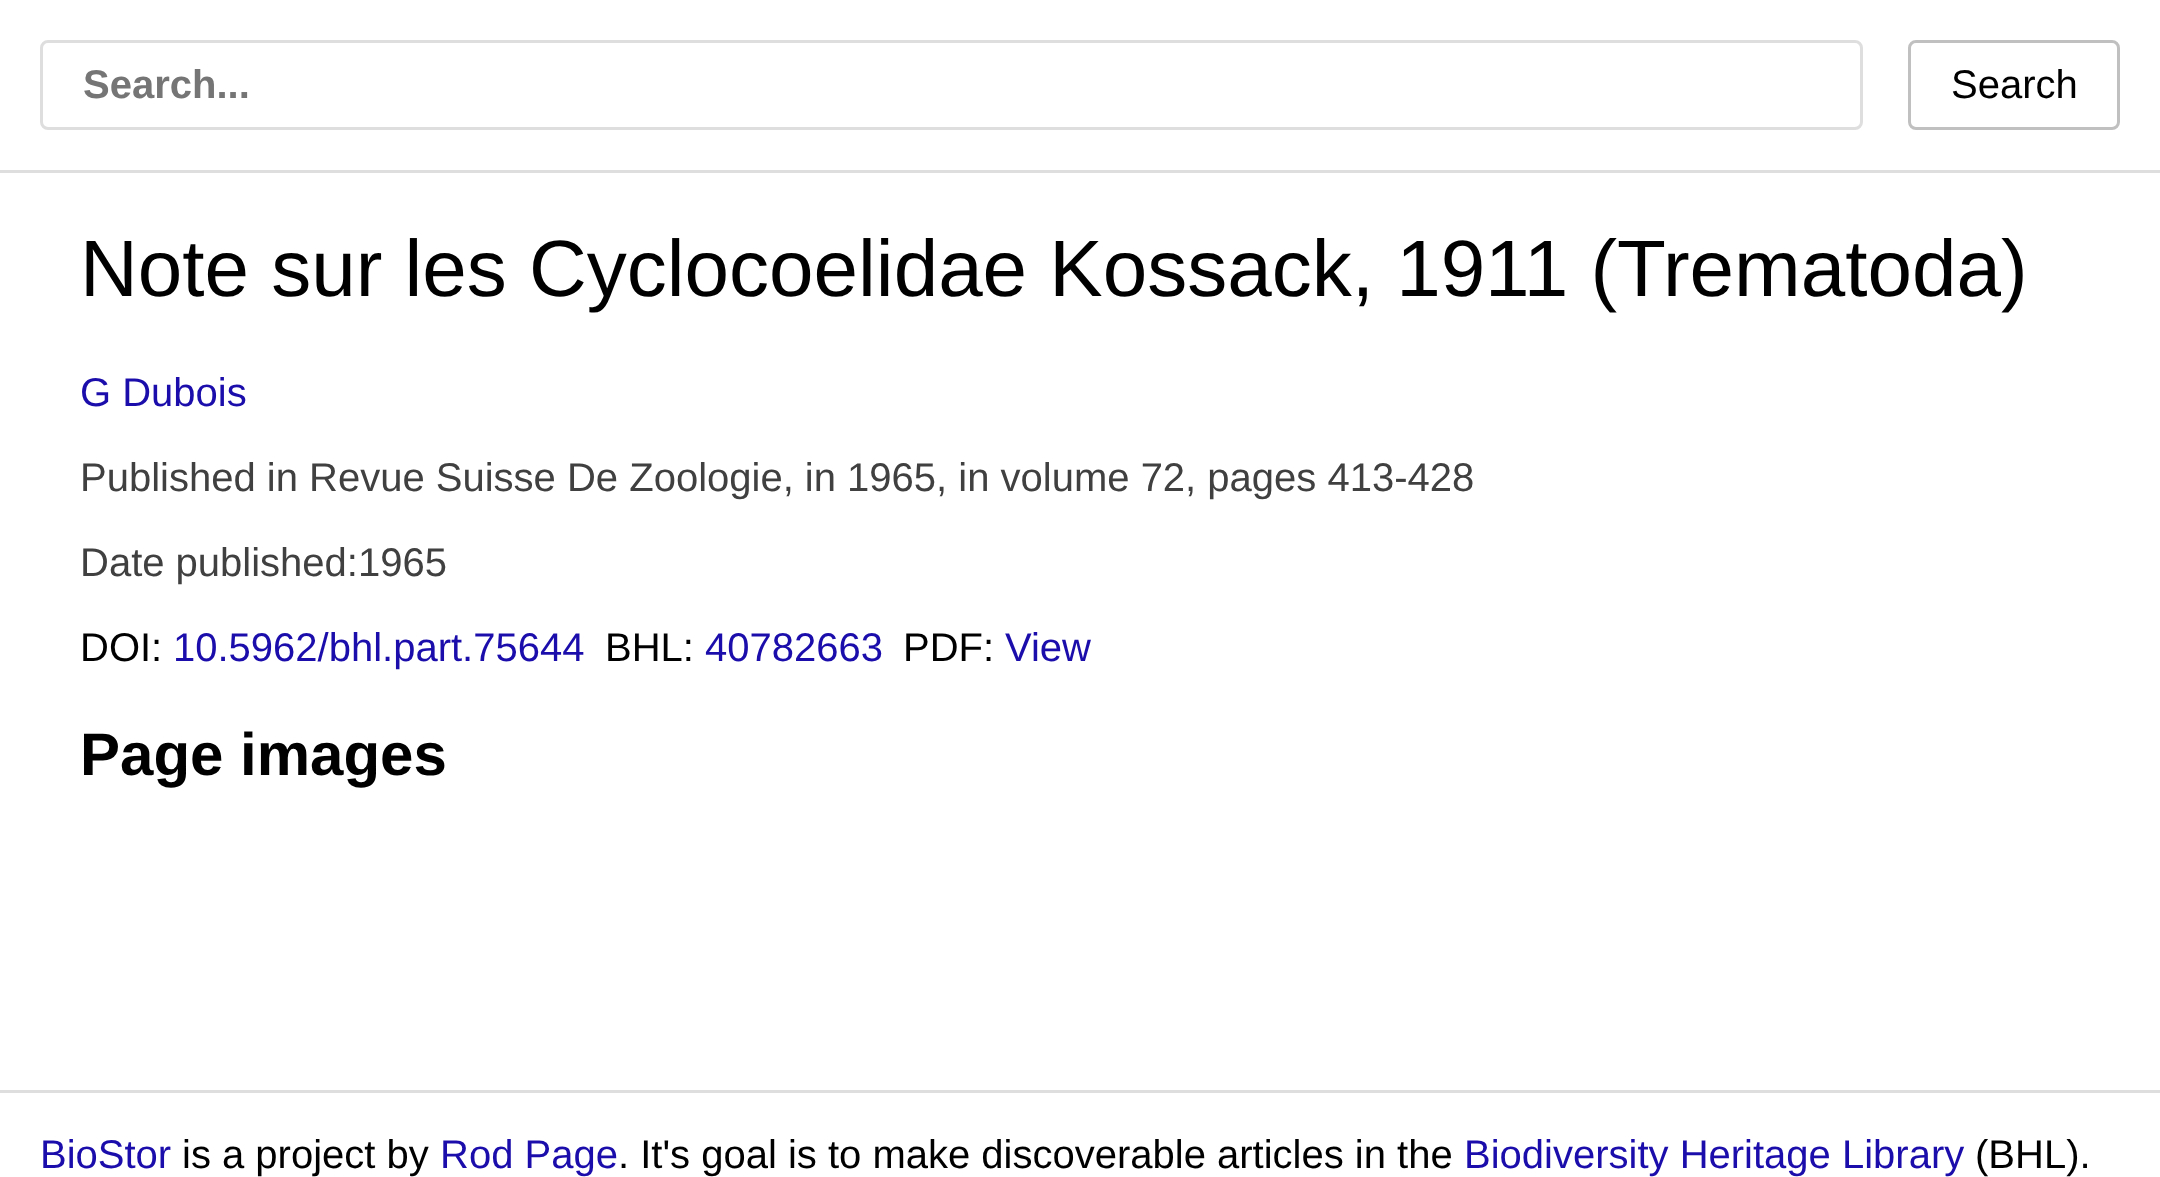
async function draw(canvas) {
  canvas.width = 2160
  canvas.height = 1177
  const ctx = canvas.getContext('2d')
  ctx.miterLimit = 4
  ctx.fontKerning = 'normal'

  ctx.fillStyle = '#fff'
  ctx.fillRect(0, 0, 2160, 1177)
  ctx.fillStyle = '#dedede'
  ctx.fillRect(0, 170, 2160, 3)
  ctx.beginPath()
  ctx.roundRect(41.5, 41.5, 1820, 87, 6.5)
  ctx.strokeStyle = '#dedede'
  ctx.lineWidth = 3
  ctx.stroke()
  ctx.font = 'bold 40px Liberation Sans'
  ctx.fillStyle = '#757575'
  ctx.fillText('Search...', 83, 98)
  ctx.beginPath()
  ctx.roundRect(1909.5, 41.5, 209, 87, 6.5)
  ctx.strokeStyle = '#c0c0c0'
  ctx.stroke()
  ctx.font = '40px Liberation Sans'
  ctx.fillStyle = '#000'
  ctx.fillText('Search', 1951, 98)
  ctx.font = '80px Liberation Sans'
  ctx.fillText('Note sur les Cyclocoelidae Kossack, 1911 (Trematoda)', 80, 296)
  ctx.font = '40px Liberation Sans'
  ctx.fillStyle = '#1a0dab'
  ctx.fillText('G Dubois', 80, 406)
  ctx.fillStyle = '#404040'
  ctx.fillText('Published in Revue Suisse De Zoologie, in 1965, in volume 72, pages 413-428', 80, 491)
  ctx.fillText('Date published:1965', 80, 576)
  ctx.fillStyle = '#000'
  ctx.fillText('DOI:', 80, 661)
  ctx.fillStyle = '#1a0dab'
  ctx.fillText('10.5962/bhl.part.75644', 173, 661)
  ctx.fillStyle = '#000'
  ctx.fillText('BHL:', 605, 661)
  ctx.fillStyle = '#1a0dab'
  ctx.fillText('40782663', 705, 661)
  ctx.fillStyle = '#000'
  ctx.fillText('PDF:', 903, 661)
  ctx.fillStyle = '#1a0dab'
  ctx.fillText('View', 1005, 661)
  ctx.font = 'bold 60px Liberation Sans'
  ctx.fillStyle = '#000'
  ctx.fillText('Page images', 80, 775)
  ctx.fillStyle = '#dedede'
  ctx.fillRect(0, 1090, 2160, 3)
  ctx.font = '40px Liberation Sans'
  ctx.fillStyle = '#1a0dab'
  ctx.fillText('BioStor', 40, 1168)
  ctx.fillStyle = '#000'
  ctx.fillText('is a project by', 182, 1168)
  ctx.fillStyle = '#1a0dab'
  ctx.fillText('Rod Page', 440, 1168)
  ctx.fillStyle = '#000'
  ctx.fillText('. It\'s goal is to make discoverable articles in the', 618, 1168)
  ctx.fillStyle = '#1a0dab'
  ctx.fillText('Biodiversity Heritage Library', 1464, 1168)
  ctx.fillStyle = '#000'
  ctx.fillText('(BHL).', 1975, 1168)
}

draw(document.querySelector('canvas'))
